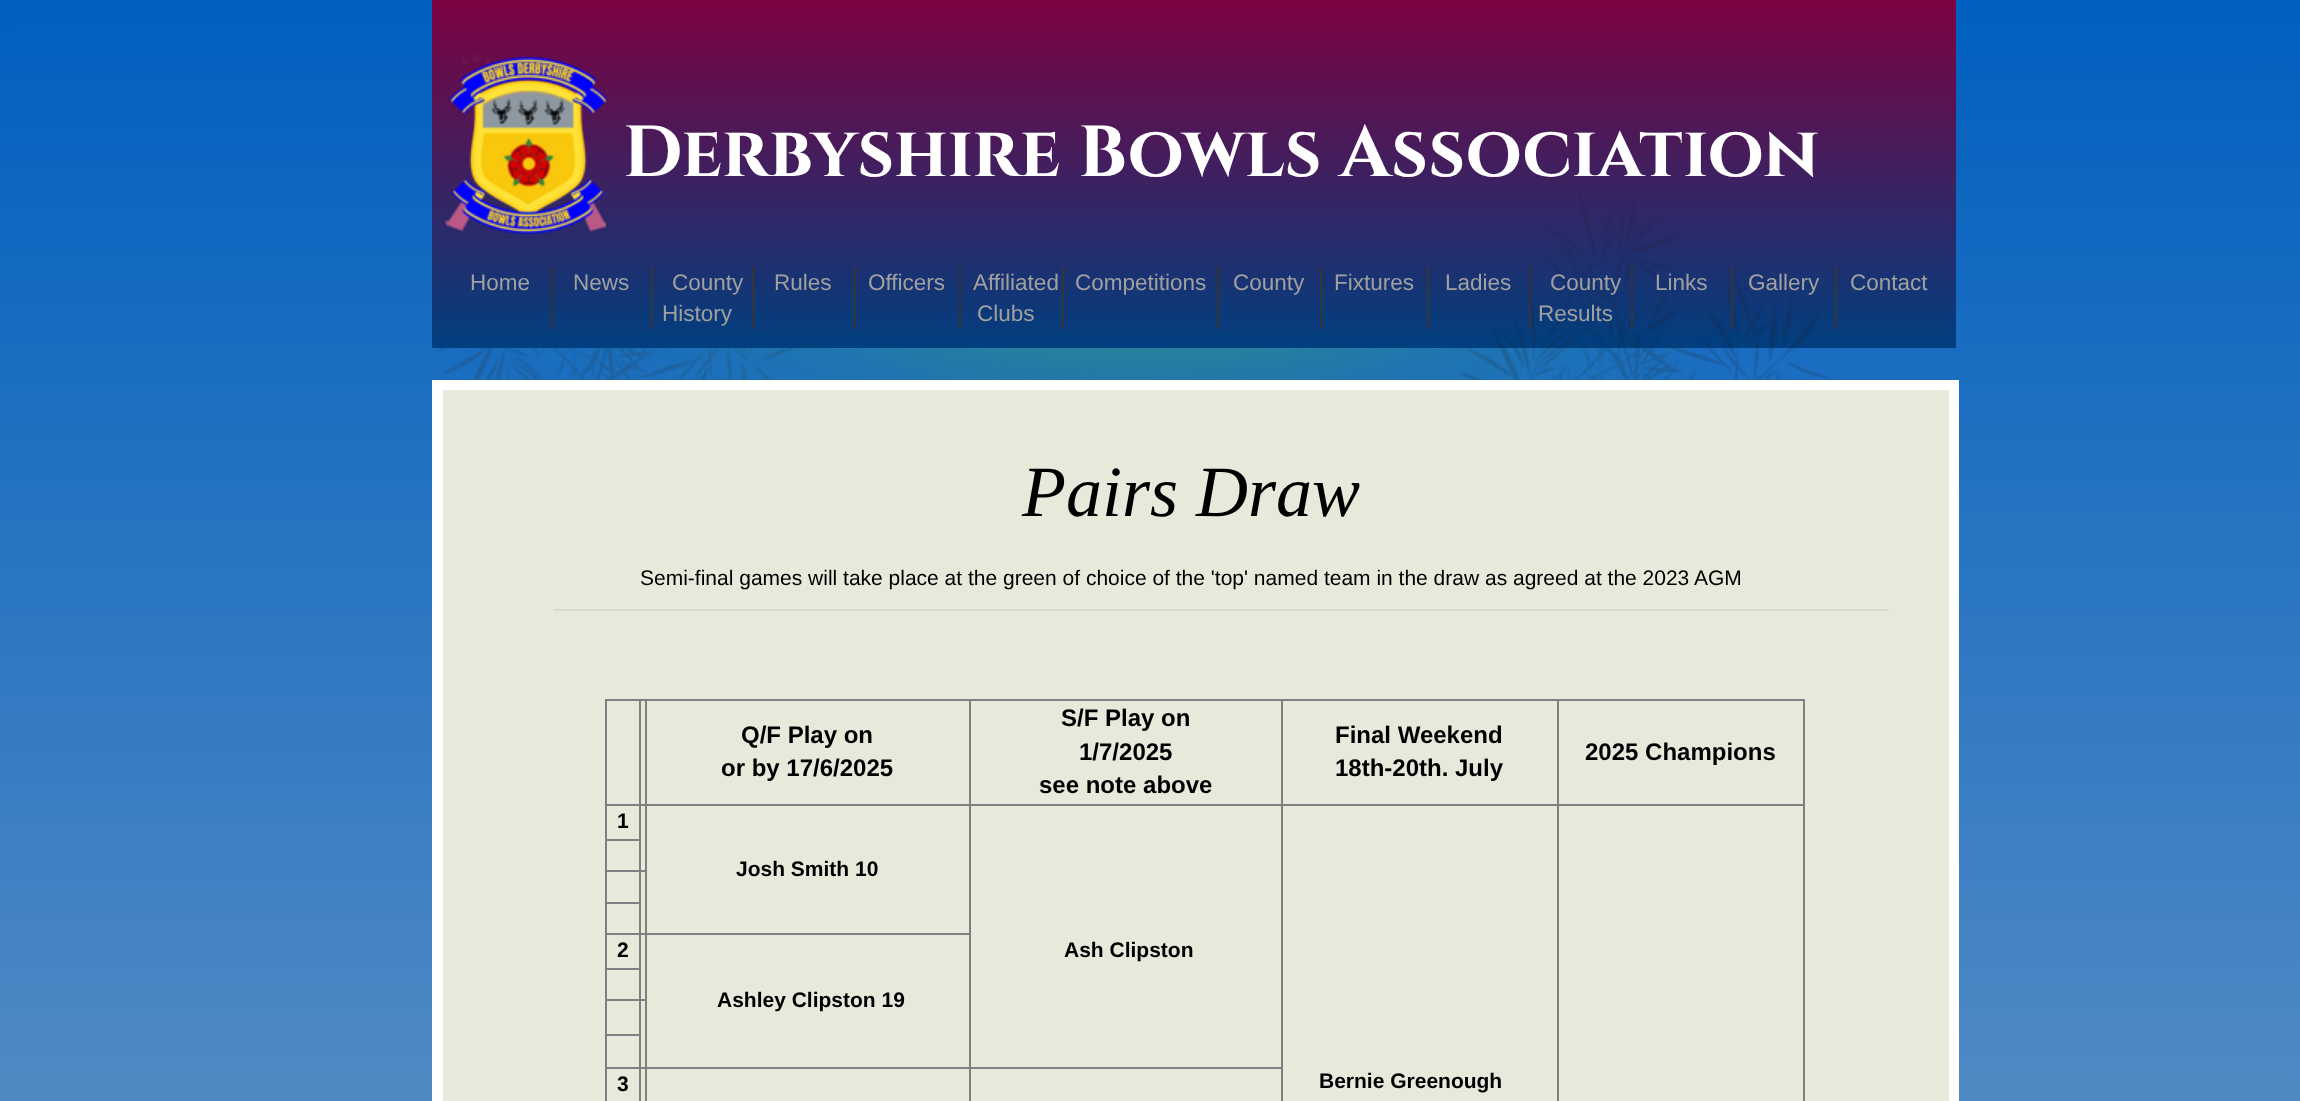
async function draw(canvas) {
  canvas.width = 2300
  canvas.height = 1101
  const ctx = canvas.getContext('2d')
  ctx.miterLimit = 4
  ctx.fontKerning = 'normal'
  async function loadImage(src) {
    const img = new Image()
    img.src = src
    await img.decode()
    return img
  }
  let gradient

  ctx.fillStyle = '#fff'
  ctx.fillRect(0, 0, 2300, 1101)
  gradient = ctx.createLinearGradient(1150, 0, 1151, 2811)
  gradient.addColorStop(0, '#005fbf')
  gradient.addColorStop(1, '#ccc')
  ctx.fillStyle = gradient
  ctx.fillRect(0, 0, 2300, 1101)
  gradient = ctx.createLinearGradient(1194, -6, 1194, 348)
  gradient.addColorStop(0, '#7f003f')
  gradient.addColorStop(1, '#003f7f')
  ctx.fillStyle = gradient
  ctx.fillRect(432, 0, 1524, 348)
  ctx.drawImage(await loadImage('image0.png'), 444, 54, 162, 181)
  ctx.font = 'bold 72px Cinzel'
  ctx.fillStyle = '#fff'
  ctx.fillText('Derbyshire Bowls Association', 623, 176)
  ctx.drawImage(await loadImage('image2.png'), 434, 348, 1258, 32)
  ctx.drawImage(await loadImage('image1.png'), 1458, 191, 378, 189)
  ctx.fillStyle = '#353535'
  ctx.fillRect(551, 266, 2, 63)
  ctx.font = '22.5px Liberation Sans'
  ctx.fillStyle = '#a0a0a0'
  ctx.fillText('Home', 470, 290)
  ctx.fillStyle = '#353535'
  ctx.fillRect(651, 266, 2, 63)
  ctx.fillStyle = '#a0a0a0'
  ctx.fillText('News', 573, 290)
  ctx.fillStyle = '#353535'
  ctx.fillRect(752, 266, 2, 63)
  ctx.fillStyle = '#a0a0a0'
  ctx.fillText('County', 672, 290)
  ctx.fillText('History', 662, 321)
  ctx.fillStyle = '#353535'
  ctx.fillRect(854, 266, 2, 63)
  ctx.fillStyle = '#a0a0a0'
  ctx.fillText('Rules', 774, 290)
  ctx.fillStyle = '#353535'
  ctx.fillRect(959, 266, 2, 63)
  ctx.fillStyle = '#a0a0a0'
  ctx.fillText('Officers', 868, 290)
  ctx.fillStyle = '#353535'
  ctx.fillRect(1062, 266, 2, 63)
  ctx.fillStyle = '#a0a0a0'
  ctx.fillText('Affiliated', 973, 290)
  ctx.fillText('Clubs', 977, 321)
  ctx.fillStyle = '#353535'
  ctx.fillRect(1217, 266, 2, 63)
  ctx.fillStyle = '#a0a0a0'
  ctx.fillText('Competitions', 1075, 290)
  ctx.fillStyle = '#353535'
  ctx.fillRect(1320, 266, 2, 63)
  ctx.fillStyle = '#a0a0a0'
  ctx.fillText('County', 1233, 290)
  ctx.fillStyle = '#353535'
  ctx.fillRect(1427, 266, 2, 63)
  ctx.fillStyle = '#a0a0a0'
  ctx.fillText('Fixtures', 1334, 290)
  ctx.fillStyle = '#353535'
  ctx.fillRect(1529, 266, 2, 63)
  ctx.fillStyle = '#a0a0a0'
  ctx.fillText('Ladies', 1445, 290)
  ctx.fillStyle = '#353535'
  ctx.fillRect(1631, 266, 2, 63)
  ctx.fillStyle = '#a0a0a0'
  ctx.fillText('County', 1550, 290)
  ctx.fillText('Results', 1538, 321)
  ctx.fillStyle = '#353535'
  ctx.fillRect(1731, 266, 2, 63)
  ctx.fillStyle = '#a0a0a0'
  ctx.fillText('Links', 1655, 290)
  ctx.fillStyle = '#353535'
  ctx.fillRect(1835, 266, 2, 63)
  ctx.fillStyle = '#a0a0a0'
  ctx.fillText('Gallery', 1748, 290)
  ctx.fillText('Contact', 1850, 290)
  ctx.fillStyle = '#e7e9db'
  ctx.fillRect(443, 390, 1506, 711)
  ctx.fillStyle = '#fff'
  ctx.fillRect(443, 380, 1506, 10)
  ctx.fillRect(1949, 380, 10, 721)
  ctx.fillRect(432, 380, 11, 721)
  ctx.font = 'italic 72px Liberation Serif'
  ctx.fillStyle = '#000'
  ctx.fillText('Pairs Draw', 1022, 516)
  ctx.font = '21px Liberation Sans'
  ctx.fillText('Semi-final games will take place at the green of choice of the \'top\' named team in the draw as agreed at the 2023 AGM', 640, 585)
  ctx.fillStyle = '#dad9cb'
  ctx.fillRect(554, 609, 1335, 2)
  ctx.fillStyle = '#808080'
  ctx.fillRect(605, 699, 1200, 2)
  ctx.fillRect(1803, 699, 2, 402)
  ctx.fillRect(605, 699, 2, 402)
  ctx.fillRect(1557, 804, 248, 2)
  ctx.fillRect(1557, 804, 2, 297)
  ctx.fillRect(1281, 804, 278, 2)
  ctx.fillRect(969, 1067, 314, 2)
  ctx.fillRect(1281, 804, 2, 297)
  ctx.fillRect(969, 804, 314, 2)
  ctx.fillRect(645, 933, 326, 2)
  ctx.fillRect(969, 1067, 2, 34)
  ctx.fillRect(645, 1067, 326, 2)
  ctx.fillRect(969, 804, 2, 264)
  ctx.fillRect(645, 804, 326, 2)
  ctx.fillRect(639, 870, 8, 2)
  ctx.fillRect(639, 999, 8, 2)
  ctx.fillRect(645, 1067, 2, 34)
  ctx.fillRect(639, 1067, 8, 2)
  ctx.fillRect(645, 933, 2, 135)
  ctx.fillRect(639, 933, 8, 2)
  ctx.fillRect(645, 804, 2, 131)
  ctx.fillRect(639, 804, 8, 2)
  ctx.fillRect(605, 839, 36, 2)
  ctx.fillRect(605, 902, 36, 2)
  ctx.fillRect(605, 968, 36, 2)
  ctx.fillRect(605, 1034, 36, 2)
  ctx.fillRect(639, 1067, 2, 34)
  ctx.fillRect(605, 1067, 36, 2)
  ctx.fillRect(639, 999, 2, 69)
  ctx.fillRect(605, 999, 36, 2)
  ctx.fillRect(639, 933, 2, 68)
  ctx.fillRect(605, 933, 36, 2)
  ctx.fillRect(639, 870, 2, 65)
  ctx.fillRect(605, 870, 36, 2)
  ctx.fillRect(639, 804, 2, 68)
  ctx.fillRect(605, 804, 36, 2)
  ctx.fillRect(639, 699, 2, 107)
  ctx.fillRect(645, 699, 2, 107)
  ctx.font = 'bold 24px Liberation Sans'
  ctx.fillStyle = '#000'
  ctx.fillText('Q/F Play on', 741, 743)
  ctx.fillText('or by 17/6/2025', 721, 776)
  ctx.fillStyle = '#808080'
  ctx.fillRect(969, 699, 2, 107)
  ctx.fillStyle = '#000'
  ctx.fillText('S/F Play on', 1061, 726)
  ctx.fillText('1/7/2025', 1079, 760)
  ctx.fillText('see note above', 1039, 793)
  ctx.fillStyle = '#808080'
  ctx.fillRect(1281, 699, 2, 107)
  ctx.fillStyle = '#000'
  ctx.fillText('Final Weekend', 1335, 743)
  ctx.fillText('18th-20th. July', 1335, 776)
  ctx.fillStyle = '#808080'
  ctx.fillRect(1557, 699, 2, 107)
  ctx.fillStyle = '#000'
  ctx.fillText('2025 Champions', 1585, 760)
  ctx.font = 'bold 21px Liberation Sans'
  ctx.fillText('1', 617, 828)
  ctx.fillText('Josh Smith 10', 736, 876)
  ctx.fillText('Ash Clipston', 1064, 957)
  ctx.fillText('Bernie Greenough', 1319, 1088)
  ctx.fillText('2', 617, 957)
  ctx.fillText('Ashley Clipston 19', 717, 1007)
  ctx.fillText('3', 617, 1091)
}

draw(document.querySelector('canvas'))
